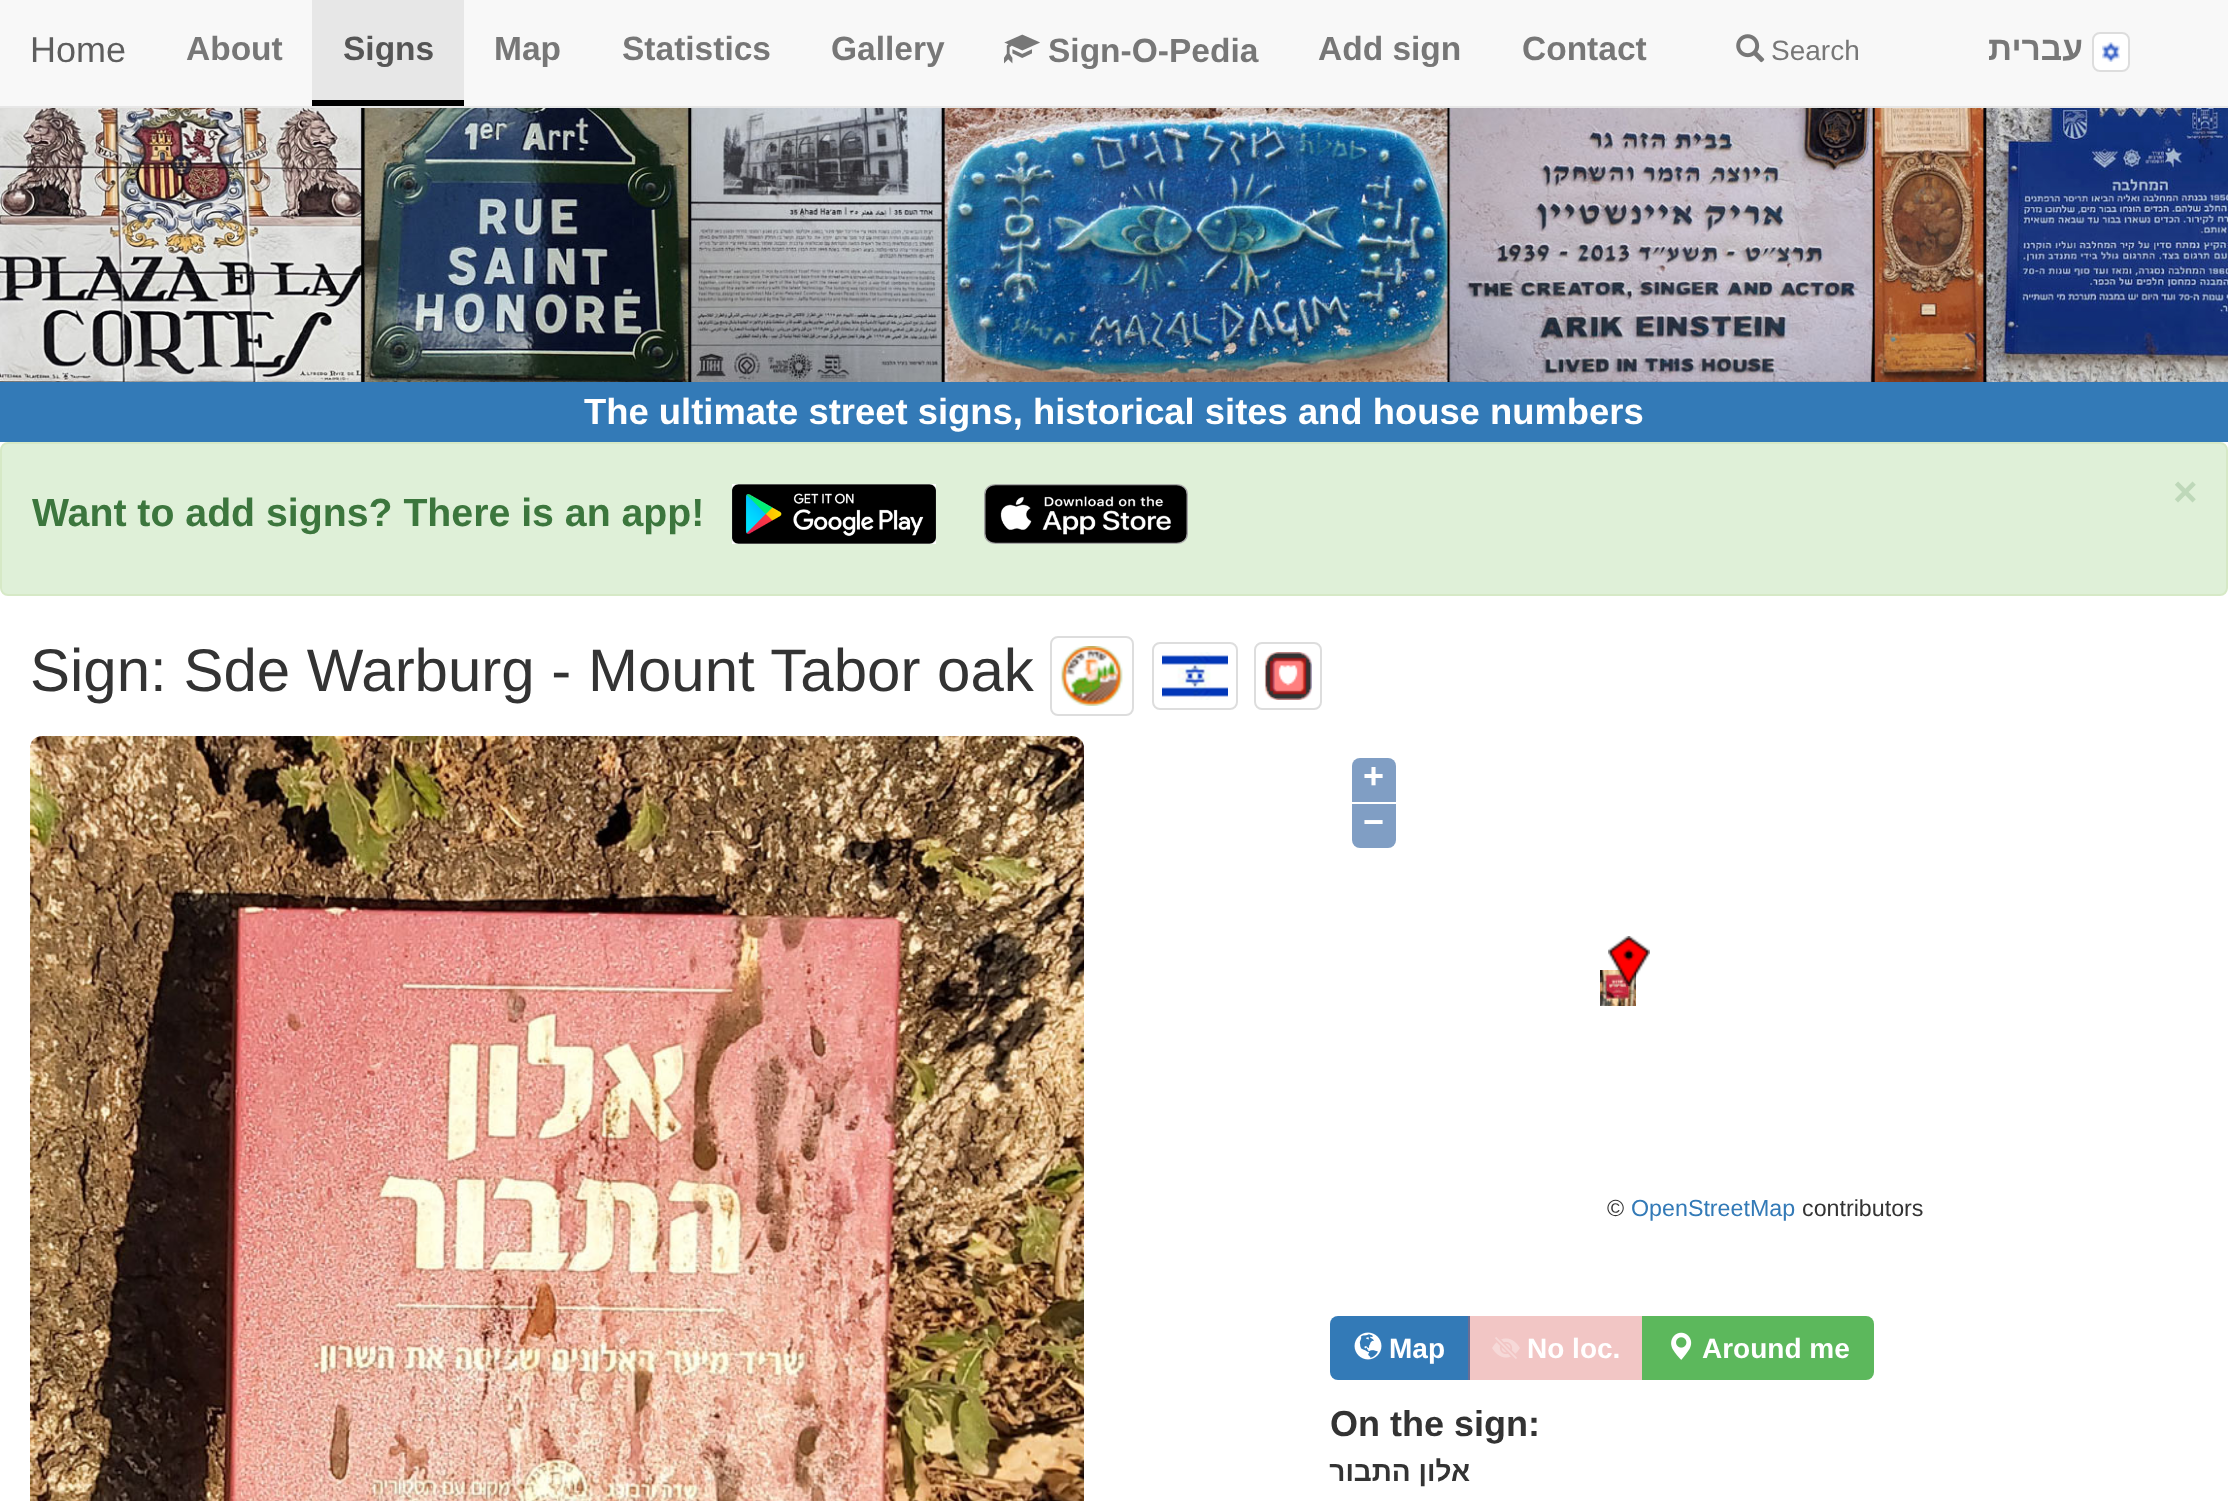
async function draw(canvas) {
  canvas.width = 2228
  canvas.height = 1501
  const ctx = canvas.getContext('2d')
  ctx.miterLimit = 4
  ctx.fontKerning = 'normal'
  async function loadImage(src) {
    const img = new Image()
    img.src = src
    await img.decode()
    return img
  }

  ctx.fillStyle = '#fff'
  ctx.fillRect(0, 0, 2228, 1501)
  ctx.fillStyle = '#f2c6c5'
  ctx.fillRect(1470, 1316, 172, 64)
  ctx.fillStyle = '#f8f8f8'
  ctx.fillRect(0, 0, 2228, 106)
  ctx.fillStyle = '#e7e7e7'
  ctx.fillRect(0, 106, 2228, 2)
  ctx.font = '36px Liberation Sans'
  ctx.fillStyle = '#5e5e5e'
  ctx.fillText('Home', 30, 62)
  ctx.font = 'bold 33.5px Liberation Sans'
  ctx.fillStyle = '#777'
  ctx.fillText('About', 186, 60)
  ctx.fillStyle = '#e7e7e7'
  ctx.fillRect(312, 0, 152, 100)
  ctx.fillStyle = '#000'
  ctx.fillRect(312, 100, 152, 6)
  ctx.fillStyle = '#555'
  ctx.fillText('Signs', 343, 60)
  ctx.fillStyle = '#777'
  ctx.fillText('Map', 494, 60)
  ctx.fillText('Statistics', 622, 60)
  ctx.fillText('Gallery', 831, 60)
  ctx.drawImage(await loadImage('image0.png'), 1004, 34, 36, 30)
  ctx.fillText('Sign-O-Pedia', 1048, 62)
  ctx.fillText('Add sign', 1318, 60)
  ctx.fillText('Contact', 1522, 60)
  ctx.drawImage(await loadImage('image1.png'), 1736, 34, 29, 29)
  ctx.font = '28px Liberation Sans'
  ctx.fillText('Search', 1771, 60)
  ctx.direction = 'rtl'
  ctx.font = 'bold 33.5px Liberation Sans'
  ctx.fillText('עברית', 2083, 60)
  ctx.fillStyle = '#fff'
  ctx.beginPath()
  ctx.roundRect(2093, 33, 36, 38, 7)
  ctx.fill()
  ctx.strokeStyle = '#ddd'
  ctx.lineWidth = 2
  ctx.stroke()
  ctx.drawImage(await loadImage('image2.png'), 2102, 42, 18, 20)
  ctx.drawImage(await loadImage('image3.png'), 0, 108, 2228, 274)
  ctx.fillStyle = '#337ab7'
  ctx.fillRect(0, 382, 2228, 60)
  ctx.direction = 'ltr'
  ctx.font = 'bold 36.4px Liberation Sans'
  ctx.fillStyle = '#fff'
  ctx.fillText('The ultimate street signs, historical sites and house numbers', 584, 424)
  ctx.fillStyle = '#dff0d8'
  ctx.beginPath()
  ctx.roundRect(1, 443, 2226, 152, 7)
  ctx.fill()
  ctx.strokeStyle = '#d6e9c6'
  ctx.stroke()
  ctx.font = 'bold 39.25px Liberation Sans'
  ctx.fillStyle = '#3c763d'
  ctx.fillText('Want to add signs? There is an app!', 32, 526)
  ctx.drawImage(await loadImage('image4.png'), 732, 484, 204, 60)
  ctx.drawImage(await loadImage('image5.png'), 984, 484, 204, 60)
  ctx.font = 'bold 42px Liberation Sans'
  ctx.fillStyle = '#bed8b9'
  ctx.fillText('×', 2173, 506)
  ctx.font = '60px Liberation Sans'
  ctx.fillStyle = '#333'
  ctx.fillText('Sign: Sde Warburg - Mount Tabor oak', 30, 691)
  ctx.beginPath()
  ctx.roundRect(1051, 637, 82, 78, 7)
  ctx.strokeStyle = '#ddd'
  ctx.stroke()
  ctx.drawImage(await loadImage('image6.png'), 1060, 646, 63, 60)
  ctx.beginPath()
  ctx.roundRect(1153, 643, 84, 66, 7)
  ctx.stroke()
  ctx.drawImage(await loadImage('image7.png'), 1162, 652, 66, 48)
  ctx.beginPath()
  ctx.roundRect(1255, 643, 66, 66, 7)
  ctx.stroke()
  ctx.drawImage(await loadImage('image8.png'), 1264, 652, 48, 48)
  ctx.drawImage(await loadImage('image9.png'), 30, 736, 1054, 765)
  ctx.fillStyle = '#809ec4'
  ctx.beginPath()
  ctx.roundRect(1352, 758, 44, 44, [8, 8, 0, 0])
  ctx.fill()
  ctx.font = 'bold 36px Liberation Sans'
  ctx.fillStyle = '#fff'
  ctx.fillText('+', 1363, 788)
  ctx.fillStyle = '#809ec4'
  ctx.beginPath()
  ctx.roundRect(1352, 804, 44, 44, [0, 0, 8, 8])
  ctx.fill()
  ctx.fillStyle = '#fff'
  ctx.fillText('−', 1363, 834)
  ctx.drawImage(await loadImage('image11.png'), 1600, 970, 36, 36)
  ctx.drawImage(await loadImage('image10.png'), 1608, 936, 42, 50)
  ctx.font = '23.25px Liberation Sans'
  ctx.fillStyle = '#333'
  ctx.fillText('©', 1607, 1216)
  ctx.fillStyle = '#337ab7'
  ctx.fillText('OpenStreetMap', 1631, 1216)
  ctx.fillStyle = '#333'
  ctx.fillText('contributors', 1802, 1216)
  ctx.fillStyle = '#337ab7'
  ctx.beginPath()
  ctx.roundRect(1330, 1316, 140, 64, [8, 0, 0, 8])
  ctx.fill()
  ctx.fillStyle = '#6a6d95'
  ctx.fillRect(1468, 1316, 2, 64)
  ctx.drawImage(await loadImage('image12.png'), 1354, 1332, 28, 28)
  ctx.font = 'bold 28px Liberation Sans'
  ctx.fillStyle = '#fff'
  ctx.fillText('Map', 1389, 1358)
  ctx.drawImage(await loadImage('image13.png'), 1492, 1337, 28, 22)
  ctx.fillText('No loc.', 1527, 1358)
  ctx.fillStyle = '#5cb85c'
  ctx.beginPath()
  ctx.roundRect(1642, 1316, 232, 64, [0, 8, 8, 0])
  ctx.fill()
  ctx.drawImage(await loadImage('image14.png'), 1671, 1332, 21, 28)
  ctx.fillStyle = '#fff'
  ctx.fillText('Around me', 1702, 1358)
  ctx.font = 'bold 36px Liberation Sans'
  ctx.fillStyle = '#333'
  ctx.fillText('On the sign:', 1330, 1436)
  ctx.direction = 'rtl'
  ctx.font = 'bold 28px Liberation Sans'
  ctx.fillText('אלון התבור', 1470, 1481)
}

draw(document.querySelector('canvas'))
